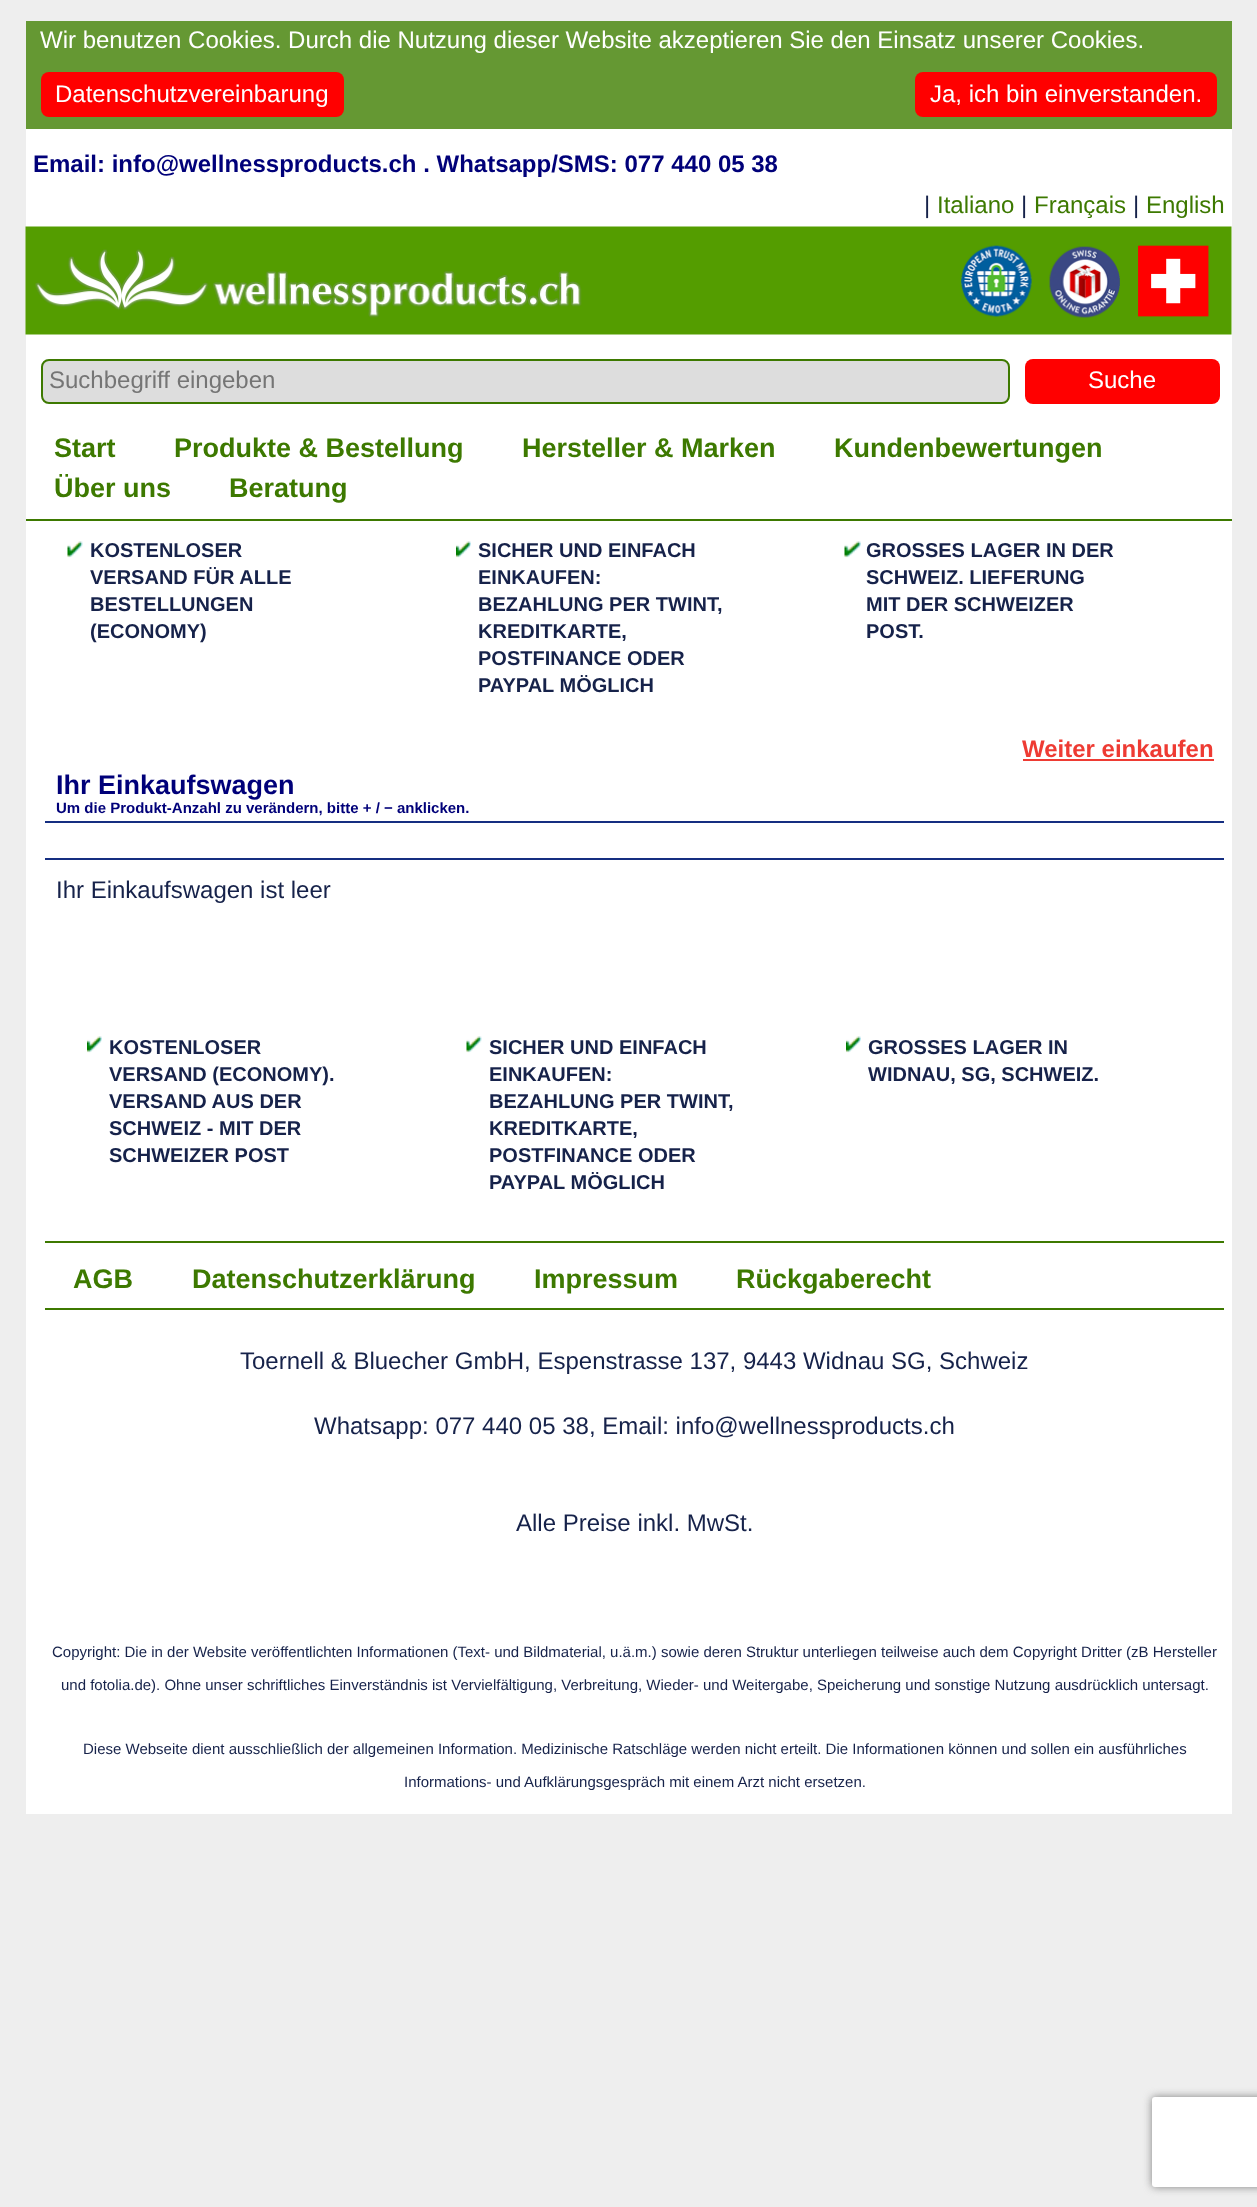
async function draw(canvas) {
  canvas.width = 1257
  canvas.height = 2207
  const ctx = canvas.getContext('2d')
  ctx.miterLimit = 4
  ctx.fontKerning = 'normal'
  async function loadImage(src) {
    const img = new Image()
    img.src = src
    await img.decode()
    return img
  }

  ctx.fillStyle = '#eee'
  ctx.fillRect(0, 0, 1257, 2207)
  ctx.fillStyle = '#fff'
  ctx.fillRect(26, 129, 1206, 1685)
  ctx.fillStyle = '#659833'
  ctx.fillRect(26, 21, 1206, 108)
  ctx.font = '24px Liberation Sans'
  ctx.fillStyle = '#fff'
  ctx.fillText('Wir benutzen Cookies. Durch die Nutzung dieser Website akzeptieren Sie den Einsatz unserer Cookies.', 40, 48)
  ctx.fillStyle = '#f00'
  ctx.beginPath()
  ctx.roundRect(41, 72, 303, 45, 8)
  ctx.fill()
  ctx.fillStyle = '#fff'
  ctx.fillText('Datenschutzvereinbarung', 55, 102)
  ctx.fillStyle = '#f00'
  ctx.beginPath()
  ctx.roundRect(915, 72, 302, 45, 8)
  ctx.fill()
  ctx.fillStyle = '#fff'
  ctx.fillText('Ja, ich bin einverstanden.', 930, 102)
  ctx.font = 'bold 24px Liberation Sans'
  ctx.fillStyle = '#000079'
  ctx.fillText('Email: info@wellnessproducts.ch . Whatsapp/SMS: 077 440 05 38', 33, 172)
  ctx.font = '24px Liberation Sans'
  ctx.fillStyle = '#16224a'
  ctx.fillText('|', 924, 213)
  ctx.fillStyle = '#3d7900'
  ctx.fillText('Italiano', 937, 213)
  ctx.fillStyle = '#16224a'
  ctx.fillText('|', 1021, 213)
  ctx.fillStyle = '#3d7900'
  ctx.fillText('Français', 1034, 213)
  ctx.fillStyle = '#16224a'
  ctx.fillText('|', 1133, 213)
  ctx.fillStyle = '#3d7900'
  ctx.fillText('English', 1146, 213)
  ctx.drawImage(await loadImage('image0.png'), 25, 226, 1207, 109)
  ctx.fillStyle = '#ddd'
  ctx.beginPath()
  ctx.roundRect(42, 360, 967, 43, 7)
  ctx.fill()
  ctx.strokeStyle = '#3d7900'
  ctx.lineWidth = 2
  ctx.stroke()
  ctx.fillStyle = '#757575'
  ctx.fillText('Suchbegriff eingeben', 49, 388)
  ctx.fillStyle = '#f00'
  ctx.beginPath()
  ctx.roundRect(1025, 359, 195, 45, 8)
  ctx.fill()
  ctx.fillStyle = '#fff'
  ctx.fillText('Suche', 1088, 388)
  ctx.fillStyle = '#3d7900'
  ctx.fillRect(26, 519, 1206, 2)
  ctx.font = 'bold 27px Liberation Sans'
  ctx.fillText('Start', 54, 457)
  ctx.fillText('Produkte & Bestellung', 174, 457)
  ctx.fillText('Hersteller & Marken', 522, 457)
  ctx.fillText('Kundenbewertungen', 834, 457)
  ctx.fillText('Über uns', 54, 497)
  ctx.fillText('Beratung', 229, 497)
  ctx.drawImage(await loadImage('image1.png'), 67, 541, 16, 17)
  ctx.font = 'bold 20px Liberation Sans'
  ctx.fillStyle = '#16224a'
  ctx.fillText('KOSTENLOSER', 90, 557)
  ctx.fillText('VERSAND FÜR ALLE', 90, 584)
  ctx.fillText('BESTELLUNGEN', 90, 611)
  ctx.fillText('(ECONOMY)', 90, 638)
  ctx.drawImage(await loadImage('image2.png'), 456, 541, 15, 17)
  ctx.fillText('SICHER UND EINFACH', 478, 557)
  ctx.fillText('EINKAUFEN:', 478, 584)
  ctx.fillText('BEZAHLUNG PER TWINT,', 478, 611)
  ctx.fillText('KREDITKARTE,', 478, 638)
  ctx.fillText('POSTFINANCE ODER', 478, 665)
  ctx.fillText('PAYPAL MÖGLICH', 478, 692)
  ctx.drawImage(await loadImage('image3.png'), 844, 541, 17, 17)
  ctx.fillText('GROSSES LAGER IN DER', 866, 557)
  ctx.fillText('SCHWEIZ. LIEFERUNG', 866, 584)
  ctx.fillText('MIT DER SCHWEIZER', 866, 611)
  ctx.fillText('POST.', 866, 638)
  ctx.font = 'bold 24px Liberation Sans'
  ctx.fillStyle = '#ee3b33'
  ctx.fillText('Weiter einkaufen', 1022, 757)
  ctx.fillRect(1023, 759, 191, 2)
  ctx.fillStyle = '#152e81'
  ctx.fillRect(45, 821, 1179, 2)
  ctx.font = 'bold 27px Liberation Sans'
  ctx.fillStyle = '#000079'
  ctx.fillText('Ihr Einkaufswagen', 56, 794)
  ctx.font = 'bold 15px Liberation Sans'
  ctx.fillText('Um die Produkt-Anzahl zu verändern, bitte + / − anklicken.', 56, 813)
  ctx.fillStyle = '#152e81'
  ctx.fillRect(45, 858, 1179, 2)
  ctx.font = '24px Liberation Sans'
  ctx.fillStyle = '#16224a'
  ctx.fillText('Ihr Einkaufswagen ist leer', 56, 898)
  ctx.drawImage(await loadImage('image4.png'), 87, 1036, 15, 17)
  ctx.font = 'bold 20px Liberation Sans'
  ctx.fillText('KOSTENLOSER', 109, 1054)
  ctx.fillText('VERSAND (ECONOMY).', 109, 1081)
  ctx.fillText('VERSAND AUS DER', 109, 1108)
  ctx.fillText('SCHWEIZ - MIT DER', 109, 1135)
  ctx.fillText('SCHWEIZER POST', 109, 1162)
  ctx.drawImage(await loadImage('image1.png'), 466, 1036, 16, 17)
  ctx.fillText('SICHER UND EINFACH', 489, 1054)
  ctx.fillText('EINKAUFEN:', 489, 1081)
  ctx.fillText('BEZAHLUNG PER TWINT,', 489, 1108)
  ctx.fillText('KREDITKARTE,', 489, 1135)
  ctx.fillText('POSTFINANCE ODER', 489, 1162)
  ctx.fillText('PAYPAL MÖGLICH', 489, 1189)
  ctx.drawImage(await loadImage('image4.png'), 846, 1036, 15, 17)
  ctx.fillText('GROSSES LAGER IN', 868, 1054)
  ctx.fillText('WIDNAU, SG, SCHWEIZ.', 868, 1081)
  ctx.fillStyle = '#3d7900'
  ctx.fillRect(45, 1241, 1179, 2)
  ctx.fillRect(45, 1308, 1179, 2)
  ctx.font = 'bold 27px Liberation Sans'
  ctx.fillText('AGB', 73, 1288)
  ctx.fillText('Datenschutzerklärung', 192, 1288)
  ctx.fillText('Impressum', 534, 1288)
  ctx.fillText('Rückgaberecht', 736, 1288)
  ctx.font = '24px Liberation Sans'
  ctx.fillStyle = '#16224a'
  ctx.fillText('Toernell & Bluecher GmbH, Espenstrasse 137, 9443 Widnau SG, Schweiz', 240, 1369)
  ctx.fillText('Whatsapp: 077 440 05 38, Email: info@wellnessproducts.ch', 314, 1434)
  ctx.fillText('Alle Preise inkl. MwSt.', 516, 1531)
  ctx.font = '15px Liberation Sans'
  ctx.fillText('Copyright: Die in der Website veröffentlichten Informationen (Text- und Bildmaterial, u.ä.m.) sowie deren Struktur unterliegen teilweise auch dem Copyright Dritter (zB Hersteller', 52, 1657)
  ctx.fillText('und fotolia.de). Ohne unser schriftliches Einverständnis ist Vervielfältigung, Verbreitung, Wieder- und Weitergabe, Speicherung und sonstige Nutzung ausdrücklich untersagt.', 61, 1690)
  ctx.fillText('Diese Webseite dient ausschließlich der allgemeinen Information. Medizinische Ratschläge werden nicht erteilt. Die Informationen können und sollen ein ausführliches', 83, 1754)
  ctx.fillText('Informations- und Aufklärungsgespräch mit einem Arzt nicht ersetzen.', 404, 1787)
  ctx.fillStyle = '#808080'
  ctx.filter = 'blur(4px)'
  ctx.beginPath()
  ctx.roundRect(1152, 2097, 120, 90, 3)
  ctx.fill()
  ctx.filter = 'none'
  ctx.fillStyle = '#fff'
  ctx.beginPath()
  ctx.roundRect(1152, 2097, 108, 90, 3)
  ctx.fill()
}

draw(document.querySelector('canvas'))
